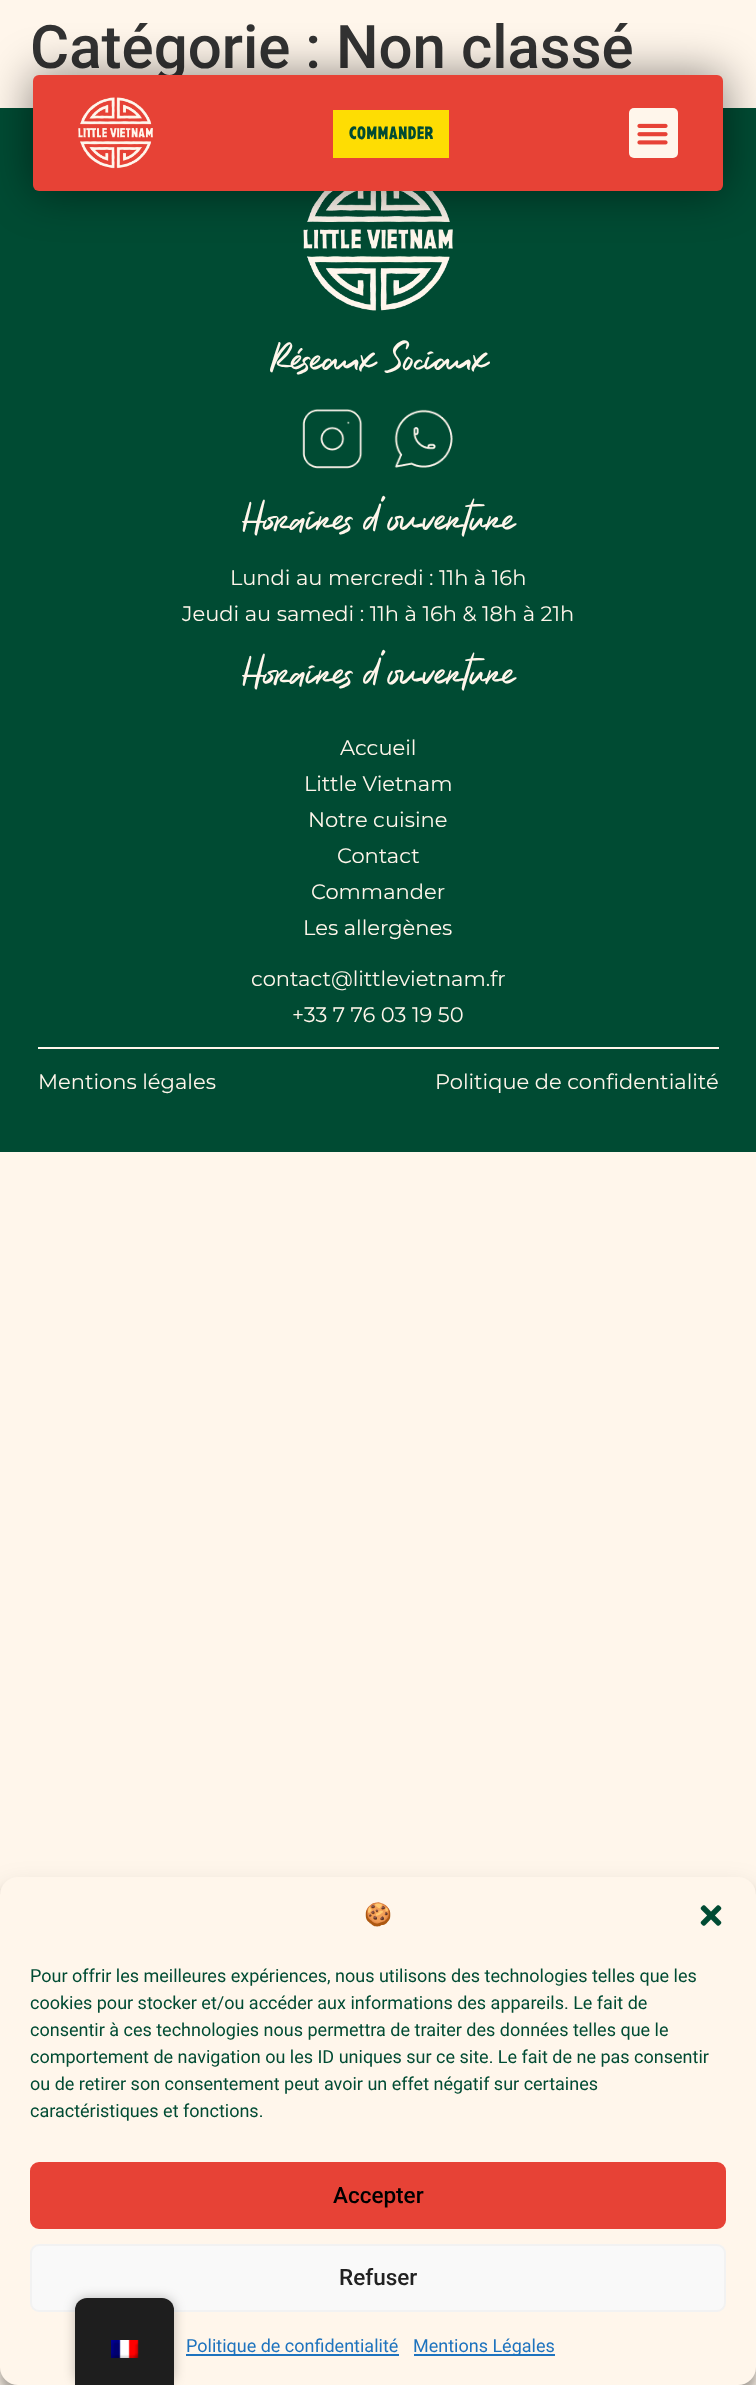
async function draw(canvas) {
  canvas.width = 756
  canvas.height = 2385
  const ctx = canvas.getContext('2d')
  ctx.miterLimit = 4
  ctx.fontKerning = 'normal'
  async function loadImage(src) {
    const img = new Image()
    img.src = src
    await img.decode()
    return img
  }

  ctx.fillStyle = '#fff6eb'
  ctx.fillRect(0, 0, 756, 2385)
  ctx.font = '500 60px Roboto'
  ctx.fillStyle = '#333'
  ctx.fillText('Catégorie : Non classé', 30, 68)
  ctx.fillStyle = '#004b33'
  ctx.fillRect(0, 108, 756, 1044)
  ctx.drawImage(await loadImage('image2.png'), 303, 191, 150, 120)
  ctx.fillStyle = '#00000075'
  ctx.filter = 'blur(22.5px)'
  ctx.beginPath()
  ctx.roundRect(32, 74, 693, 118, 8)
  ctx.fill()
  ctx.filter = 'none'
  ctx.fillStyle = '#e74236'
  ctx.beginPath()
  ctx.roundRect(33, 75, 690, 116, 6)
  ctx.fill()
  ctx.drawImage(await loadImage('image0.png'), 78, 97, 75, 72)
  ctx.fillStyle = '#fedd03'
  ctx.fillRect(333, 110, 116, 48)
  ctx.font = '18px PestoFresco'
  ctx.fillStyle = '#004b33'
  ctx.fillText('COMMANDER', 349, 139)
  ctx.fillStyle = '#fff6eb'
  ctx.beginPath()
  ctx.roundRect(629, 108, 49, 50, 5)
  ctx.fill()
  ctx.drawImage(await loadImage('image1.png'), 637, 123, 31, 22)
  ctx.font = '37.5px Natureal'
  ctx.fillText('Réseaux Sociaux', 270, 370)
  ctx.drawImage(await loadImage('image3.png'), 302, 409, 61, 60)
  ctx.drawImage(await loadImage('image4.png'), 394, 409, 59, 59)
  ctx.fillText('Horaires d\'ouverture', 242, 530)
  ctx.font = '21px Montserrat'
  ctx.fillText('Lundi au mercredi : 11h à 16h', 230, 585)
  ctx.fillText('Jeudi au samedi : 11h à 16h & 18h à 21h', 182, 621)
  ctx.font = '37.5px Natureal'
  ctx.fillText('Horaires d\'ouverture', 242, 684)
  ctx.font = '21px Montserrat'
  ctx.fillText('Accueil', 340, 755)
  ctx.fillText('Little Vietnam', 304, 791)
  ctx.fillText('Notre cuisine', 308, 827)
  ctx.fillText('Contact', 337, 863)
  ctx.fillText('Commander', 311, 899)
  ctx.fillText('Les allergènes', 303, 935)
  ctx.fillText('contact@littlevietnam.fr', 251, 986)
  ctx.fillText('+33 7 76 03 19 50', 292, 1022)
  ctx.fillRect(38, 1047, 681, 2)
  ctx.fillText('Mentions légales', 38, 1089)
  ctx.fillText('Politique de confidentialité', 435, 1089)
  ctx.fillStyle = '#0000003b'
  ctx.filter = 'blur(4.5px)'
  ctx.beginPath()
  ctx.roundRect(0, 1886, 756, 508, 18)
  ctx.fill()
  ctx.filter = 'none'
  ctx.fillStyle = '#00000030'
  ctx.filter = 'blur(15px)'
  ctx.beginPath()
  ctx.roundRect(0, 1892, 756, 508, 18)
  ctx.fill()
  ctx.filter = 'none'
  ctx.fillStyle = '#fff6eb'
  ctx.beginPath()
  ctx.roundRect(0, 1877, 756, 508, 18)
  ctx.fill()
  ctx.font = '22.5px Noto Color Emoji'
  ctx.fillStyle = '#004b33'
  ctx.fillText('🍪', 364, 1922)
  ctx.drawImage(await loadImage('image5.png'), 700, 1905, 22, 21)
  ctx.font = '18px Roboto'
  ctx.fillText('Pour offrir les meilleures expériences, nous utilisons des technologies telles que les', 30, 1982)
  ctx.fillText('cookies pour stocker et/ou accéder aux informations des appareils. Le fait de', 30, 2009)
  ctx.fillText('consentir à ces technologies nous permettra de traiter des données telles que le', 30, 2036)
  ctx.fillText('comportement de navigation ou les ID uniques sur ce site. Le fait de ne pas consentir', 30, 2063)
  ctx.fillText('ou de retirer son consentement peut avoir un effet négatif sur certaines', 30, 2090)
  ctx.fillText('caractéristiques et fonctions.', 30, 2117)
  ctx.fillStyle = '#e74236'
  ctx.beginPath()
  ctx.roundRect(31, 2163, 694, 65, 8)
  ctx.fill()
  ctx.strokeStyle = '#e74236'
  ctx.lineWidth = 2
  ctx.stroke()
  ctx.font = '500 22.5px Roboto'
  ctx.fillStyle = '#000'
  ctx.fillText('Accepter', 333, 2203)
  ctx.fillStyle = '#f9f9f9'
  ctx.beginPath()
  ctx.roundRect(31, 2245, 694, 66, 8)
  ctx.fill()
  ctx.strokeStyle = '#f2f2f2'
  ctx.stroke()
  ctx.fillStyle = '#222'
  ctx.fillText('Refuser', 339, 2285)
  ctx.fillStyle = '#1e73be'
  ctx.fillRect(186, 2354, 213, 2)
  ctx.font = '18px Roboto'
  ctx.fillText('Politique de confidentialité', 186, 2352)
  ctx.fillRect(414, 2354, 141, 2)
  ctx.fillText('Mentions Légales', 413, 2352)
  ctx.fillStyle = '#00000040'
  ctx.filter = 'blur(6px)'
  ctx.beginPath()
  ctx.roundRect(75, 2298, 99, 87, 12)
  ctx.fill()
  ctx.filter = 'none'
  ctx.fillStyle = '#1e1e1e'
  ctx.beginPath()
  ctx.roundRect(75, 2298, 99, 87, [12, 12, 0, 0])
  ctx.fill()
  ctx.drawImage(await loadImage('image6.png'), 111, 2340, 28, 18)
}

draw(document.querySelector('canvas'))
